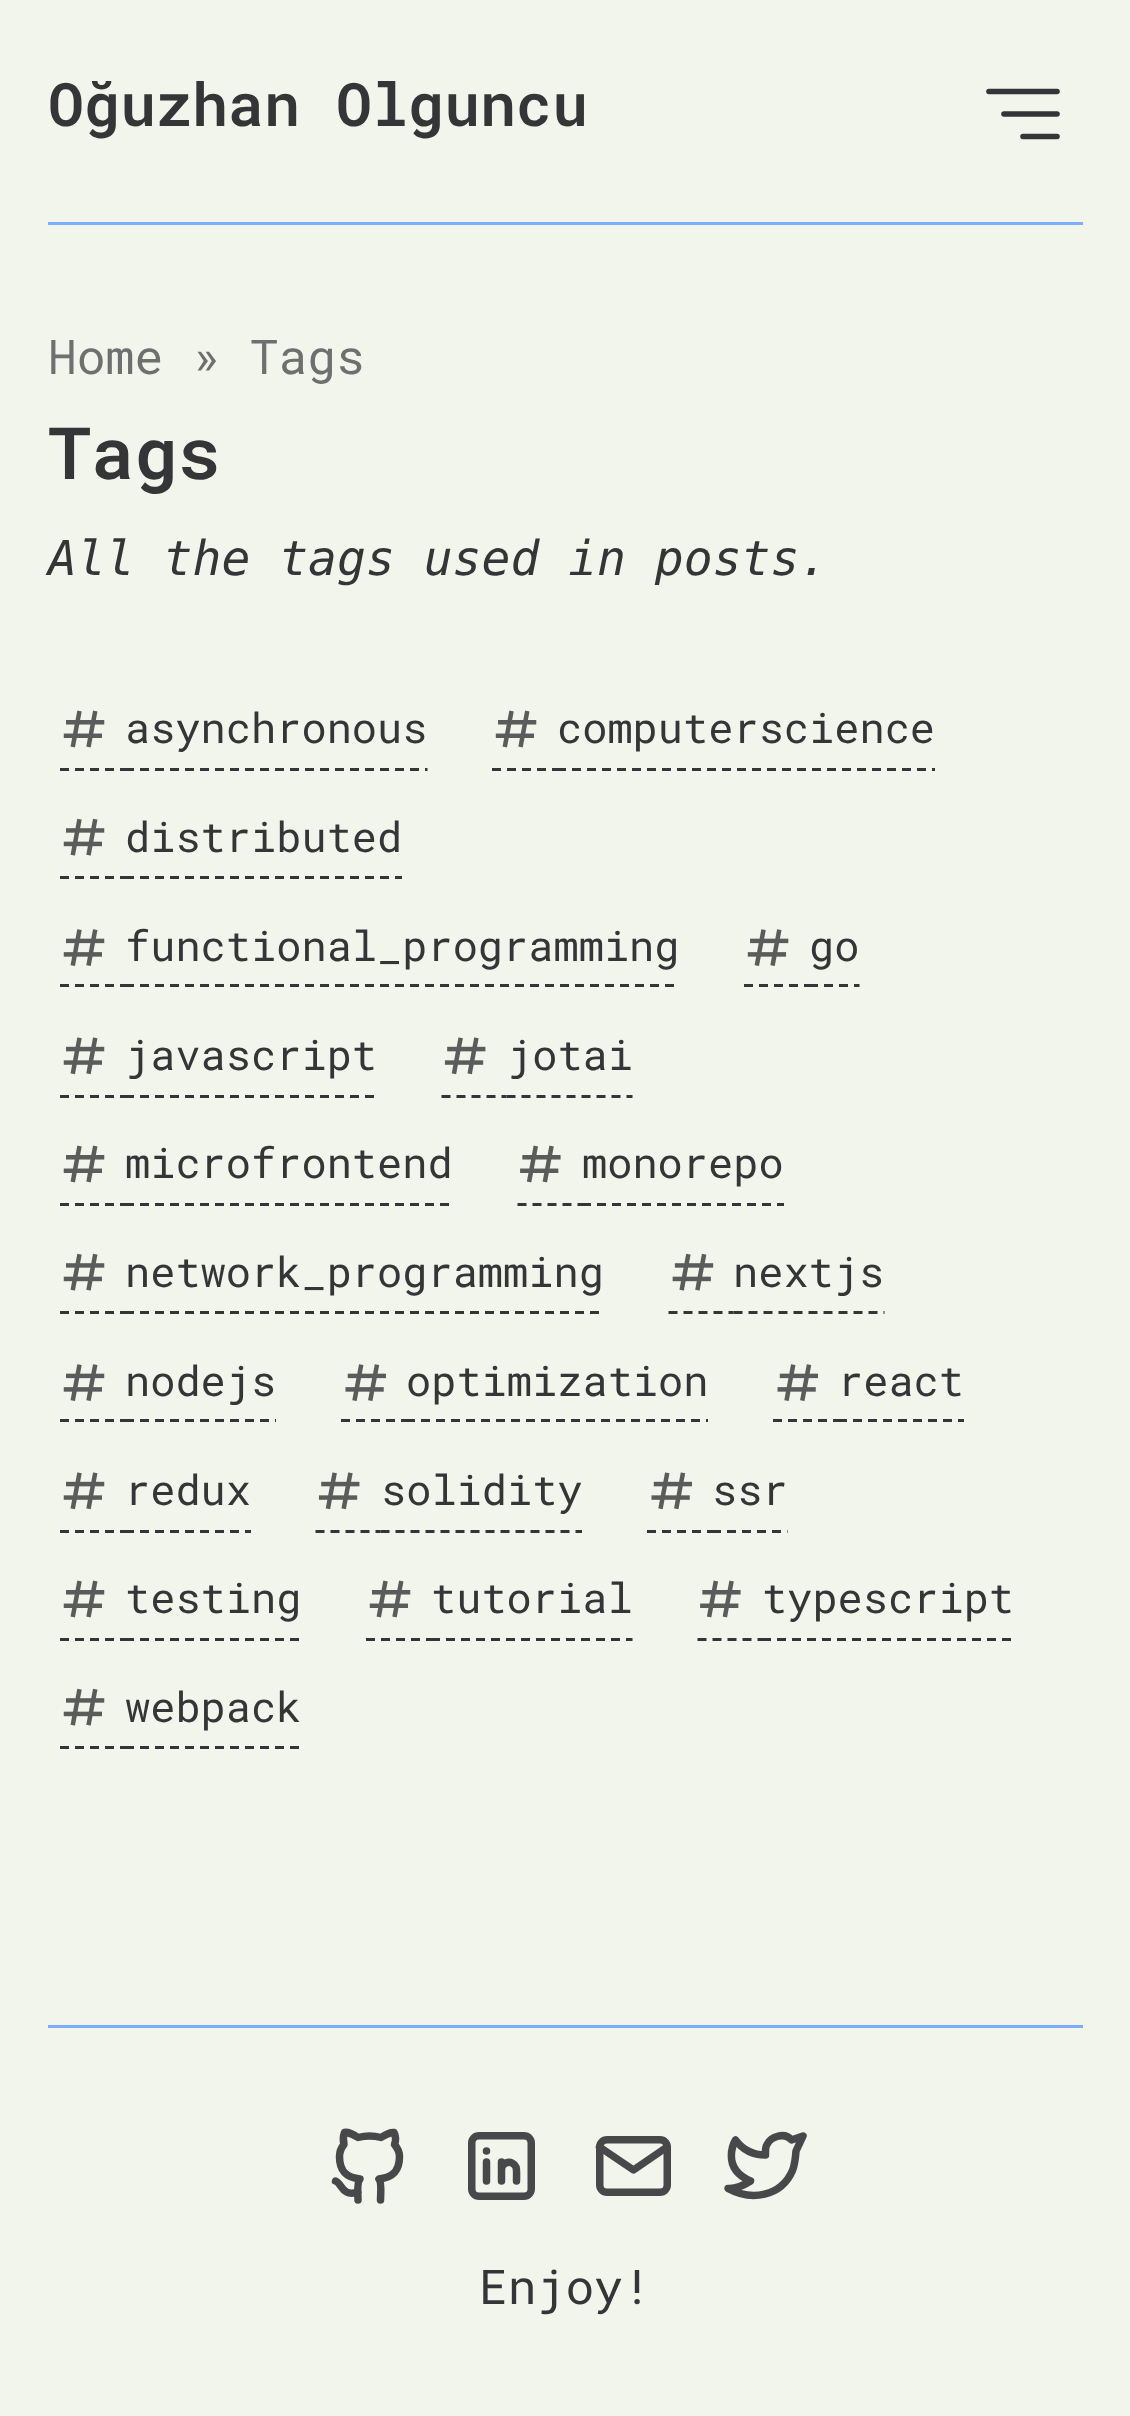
async function draw(canvas) {
  canvas.width = 1130
  canvas.height = 2416
  const ctx = canvas.getContext('2d')
  ctx.miterLimit = 4
  ctx.fontKerning = 'normal'
  async function loadImage(src) {
    const img = new Image()
    img.src = src
    await img.decode()
    return img
  }

  ctx.fillStyle = '#f2f5ec'
  ctx.fillRect(0, 0, 1130, 2416)
  ctx.font = '600 60px Roboto Mono'
  ctx.fillStyle = '#353538'
  ctx.fillText('Oğuzhan Olguncu', 48, 126)
  ctx.beginPath()
  ctx.moveTo(1004, 114)
  ctx.lineTo(1057, 114)
  ctx.strokeStyle = '#353538'
  ctx.lineWidth = 5.6
  ctx.lineCap = 'round'
  ctx.lineJoin = 'round'
  ctx.stroke()
  ctx.beginPath()
  ctx.moveTo(989, 91.5)
  ctx.lineTo(1057, 91.5)
  ctx.stroke()
  ctx.beginPath()
  ctx.moveTo(1023, 136.5)
  ctx.lineTo(1057, 136.5)
  ctx.stroke()
  ctx.fillStyle = '#7cadff'
  ctx.fillRect(48, 222, 1035, 3)
  ctx.font = '48px Roboto Mono'
  ctx.fillStyle = '#6e6f6e'
  ctx.fillText('Home » Tags', 48, 374)
  ctx.font = '600 72px Roboto Mono'
  ctx.fillStyle = '#353538'
  ctx.fillText('Tags', 48, 479)
  ctx.font = 'italic 48px DejaVu Sans Mono'
  ctx.fillText('All the tags used in posts.', 48, 575)
  ctx.drawImage(await loadImage('image0.png'), 63, 710, 42, 38)
  ctx.font = '42px Roboto Mono'
  ctx.fillText('asynchronous', 125, 743)
  ctx.beginPath()
  ctx.moveTo(125, 769.5)
  ctx.lineTo(427.5, 769.5)
  ctx.lineWidth = 3
  ctx.lineCap = 'butt'
  ctx.lineJoin = 'miter'
  ctx.setLineDash([9, 6])
  ctx.stroke()
  ctx.beginPath()
  ctx.moveTo(60, 769.5)
  ctx.lineTo(125, 769.5)
  ctx.stroke()
  ctx.drawImage(await loadImage('image1.png'), 495, 710, 42, 38)
  ctx.fillText('computerscience', 557, 743)
  ctx.beginPath()
  ctx.moveTo(557, 769.5)
  ctx.lineTo(935, 769.5)
  ctx.stroke()
  ctx.beginPath()
  ctx.moveTo(492, 769.5)
  ctx.lineTo(557, 769.5)
  ctx.stroke()
  ctx.drawImage(await loadImage('image2.png'), 63, 818, 42, 38)
  ctx.fillText('distributed', 125, 852)
  ctx.beginPath()
  ctx.moveTo(125, 877.5)
  ctx.lineTo(402, 877.5)
  ctx.stroke()
  ctx.beginPath()
  ctx.moveTo(60, 877.5)
  ctx.lineTo(125, 877.5)
  ctx.stroke()
  ctx.drawImage(await loadImage('image3.png'), 63, 929, 42, 37)
  ctx.fillText('functional_programming', 125, 961)
  ctx.beginPath()
  ctx.moveTo(125, 985.5)
  ctx.lineTo(679.5, 985.5)
  ctx.stroke()
  ctx.beginPath()
  ctx.moveTo(60, 985.5)
  ctx.lineTo(125, 985.5)
  ctx.stroke()
  ctx.drawImage(await loadImage('image4.png'), 747, 929, 42, 37)
  ctx.fillText('go', 809, 961)
  ctx.beginPath()
  ctx.moveTo(809, 985.5)
  ctx.lineTo(818, 985.5)
  ctx.moveTo(824, 985.5)
  ctx.lineTo(833, 985.5)
  ctx.moveTo(839, 985.5)
  ctx.lineTo(848, 985.5)
  ctx.moveTo(854, 985.5)
  ctx.lineTo(859.5, 985.5)
  ctx.setLineDash([])
  ctx.stroke()
  ctx.beginPath()
  ctx.moveTo(744, 985.5)
  ctx.lineTo(809, 985.5)
  ctx.setLineDash([9, 6])
  ctx.stroke()
  ctx.drawImage(await loadImage('image5.png'), 63, 1037, 42, 38)
  ctx.fillText('javascript', 125, 1070)
  ctx.beginPath()
  ctx.moveTo(125, 1096.5)
  ctx.lineTo(377, 1096.5)
  ctx.stroke()
  ctx.beginPath()
  ctx.moveTo(60, 1096.5)
  ctx.lineTo(125, 1096.5)
  ctx.stroke()
  ctx.drawImage(await loadImage('image6.png'), 444, 1037, 42, 38)
  ctx.fillText('jotai', 507, 1070)
  ctx.beginPath()
  ctx.moveTo(441.5, 1096.5)
  ctx.lineTo(506.5, 1096.5)
  ctx.stroke()
  ctx.beginPath()
  ctx.moveTo(506.5, 1096.5)
  ctx.lineTo(632.5, 1096.5)
  ctx.stroke()
  ctx.drawImage(await loadImage('image0.png'), 63, 1145, 42, 38)
  ctx.fillText('microfrontend', 125, 1178)
  ctx.beginPath()
  ctx.moveTo(125, 1204.5)
  ctx.lineTo(452.5, 1204.5)
  ctx.stroke()
  ctx.beginPath()
  ctx.moveTo(60, 1204.5)
  ctx.lineTo(125, 1204.5)
  ctx.stroke()
  ctx.drawImage(await loadImage('image7.png'), 520, 1145, 41, 38)
  ctx.fillText('monorepo', 582, 1178)
  ctx.beginPath()
  ctx.moveTo(582, 1204.5)
  ctx.lineTo(784, 1204.5)
  ctx.stroke()
  ctx.beginPath()
  ctx.moveTo(517.5, 1204.5)
  ctx.lineTo(582, 1204.5)
  ctx.stroke()
  ctx.drawImage(await loadImage('image2.png'), 63, 1253, 42, 38)
  ctx.fillText('network_programming', 125, 1287)
  ctx.beginPath()
  ctx.moveTo(125, 1312.5)
  ctx.lineTo(604, 1312.5)
  ctx.stroke()
  ctx.beginPath()
  ctx.moveTo(60, 1312.5)
  ctx.lineTo(125, 1312.5)
  ctx.stroke()
  ctx.drawImage(await loadImage('image8.png'), 672, 1253, 42, 38)
  ctx.fillText('nextjs', 733, 1287)
  ctx.beginPath()
  ctx.moveTo(668.5, 1312.5)
  ctx.lineTo(733.5, 1312.5)
  ctx.stroke()
  ctx.beginPath()
  ctx.moveTo(733.5, 1312.5)
  ctx.lineTo(884.5, 1312.5)
  ctx.stroke()
  ctx.drawImage(await loadImage('image3.png'), 63, 1364, 42, 37)
  ctx.fillText('nodejs', 125, 1396)
  ctx.beginPath()
  ctx.moveTo(125, 1420.5)
  ctx.lineTo(276, 1420.5)
  ctx.stroke()
  ctx.beginPath()
  ctx.moveTo(60, 1420.5)
  ctx.lineTo(125, 1420.5)
  ctx.stroke()
  ctx.drawImage(await loadImage('image9.png'), 345, 1364, 41, 37)
  ctx.fillText('optimization', 406, 1396)
  ctx.beginPath()
  ctx.moveTo(406, 1420.5)
  ctx.lineTo(708, 1420.5)
  ctx.stroke()
  ctx.beginPath()
  ctx.moveTo(341, 1420.5)
  ctx.lineTo(406, 1420.5)
  ctx.stroke()
  ctx.drawImage(await loadImage('image10.png'), 777, 1364, 41, 37)
  ctx.fillText('react', 838, 1396)
  ctx.beginPath()
  ctx.moveTo(838, 1420.5)
  ctx.lineTo(964, 1420.5)
  ctx.stroke()
  ctx.beginPath()
  ctx.moveTo(773, 1420.5)
  ctx.lineTo(838, 1420.5)
  ctx.stroke()
  ctx.drawImage(await loadImage('image5.png'), 63, 1472, 42, 38)
  ctx.fillText('redux', 125, 1505)
  ctx.beginPath()
  ctx.moveTo(125, 1531.5)
  ctx.lineTo(251, 1531.5)
  ctx.stroke()
  ctx.beginPath()
  ctx.moveTo(60, 1531.5)
  ctx.lineTo(125, 1531.5)
  ctx.stroke()
  ctx.drawImage(await loadImage('image6.png'), 318, 1472, 42, 38)
  ctx.fillText('solidity', 381, 1505)
  ctx.beginPath()
  ctx.moveTo(315.5, 1531.5)
  ctx.lineTo(380.5, 1531.5)
  ctx.stroke()
  ctx.beginPath()
  ctx.moveTo(380.5, 1531.5)
  ctx.lineTo(582, 1531.5)
  ctx.stroke()
  ctx.drawImage(await loadImage('image11.png'), 651, 1472, 41, 38)
  ctx.fillText('ssr', 712, 1505)
  ctx.beginPath()
  ctx.moveTo(712, 1531.5)
  ctx.lineTo(787.5, 1531.5)
  ctx.stroke()
  ctx.beginPath()
  ctx.moveTo(647, 1531.5)
  ctx.lineTo(712, 1531.5)
  ctx.stroke()
  ctx.drawImage(await loadImage('image0.png'), 63, 1580, 42, 38)
  ctx.fillText('testing', 125, 1613)
  ctx.beginPath()
  ctx.moveTo(125, 1639.5)
  ctx.lineTo(301.5, 1639.5)
  ctx.stroke()
  ctx.beginPath()
  ctx.moveTo(60, 1639.5)
  ctx.lineTo(125, 1639.5)
  ctx.stroke()
  ctx.drawImage(await loadImage('image12.png'), 369, 1580, 42, 38)
  ctx.fillText('tutorial', 431, 1613)
  ctx.beginPath()
  ctx.moveTo(431, 1639.5)
  ctx.lineTo(632.5, 1639.5)
  ctx.stroke()
  ctx.beginPath()
  ctx.moveTo(366, 1639.5)
  ctx.lineTo(431, 1639.5)
  ctx.stroke()
  ctx.drawImage(await loadImage('image13.png'), 700, 1580, 41, 38)
  ctx.fillText('typescript', 762, 1613)
  ctx.beginPath()
  ctx.moveTo(762, 1639.5)
  ctx.lineTo(1014.5, 1639.5)
  ctx.stroke()
  ctx.beginPath()
  ctx.moveTo(697.5, 1639.5)
  ctx.lineTo(762, 1639.5)
  ctx.stroke()
  ctx.drawImage(await loadImage('image2.png'), 63, 1688, 42, 38)
  ctx.fillText('webpack', 125, 1722)
  ctx.beginPath()
  ctx.moveTo(125, 1747.5)
  ctx.lineTo(301.5, 1747.5)
  ctx.stroke()
  ctx.beginPath()
  ctx.moveTo(60, 1747.5)
  ctx.lineTo(125, 1747.5)
  ctx.stroke()
  ctx.fillStyle = '#7cadff'
  ctx.fillRect(48, 2025, 1035, 3)
  ctx.beginPath()
  ctx.moveTo(358, 2192)
  ctx.bezierCurveTo(342, 2197.5, 342, 2183, 335.5, 2181)
  ctx.moveTo(380.5, 2200)
  ctx.bezierCurveTo(380.5, 2195, 382, 2182.5, 379, 2179)
  ctx.bezierCurveTo(389, 2178, 399.5, 2174, 399.5, 2156.5)
  ctx.bezierCurveTo(399.5, 2152, 397.5, 2148, 394.5, 2144.5)
  ctx.bezierCurveTo(396, 2140.5, 396, 2136.5, 394, 2132.5)
  ctx.bezierCurveTo(394, 2132.5, 390, 2131.5, 381, 2137.5)
  ctx.bezierCurveTo(373.5, 2135.5, 365.5, 2135.5, 358, 2137.5)
  ctx.bezierCurveTo(349, 2131.5, 344.5, 2132.5, 344.5, 2132.5)
  ctx.bezierCurveTo(343, 2136.5, 343, 2140.5, 344, 2144.5)
  ctx.bezierCurveTo(341, 2148, 339.5, 2152, 339.5, 2156.5)
  ctx.bezierCurveTo(339.5, 2174, 349.5, 2178, 360, 2179)
  ctx.bezierCurveTo(356.5, 2182.5, 358, 2195, 358, 2200)
  ctx.strokeStyle = '#48484a'
  ctx.lineWidth = 7.5
  ctx.lineCap = 'round'
  ctx.lineJoin = 'round'
  ctx.setLineDash([])
  ctx.stroke()
  ctx.beginPath()
  ctx.roundRect(471.75, 2135.75, 59.5, 60.5, 7.25)
  ctx.lineJoin = 'miter'
  ctx.stroke()
  ctx.beginPath()
  ctx.moveTo(486.5, 2162)
  ctx.lineTo(486.5, 2181)
  ctx.moveTo(486.5, 2151)
  ctx.lineTo(486.5, 2151)
  ctx.moveTo(501.5, 2181)
  ctx.lineTo(501.5, 2162)
  ctx.moveTo(516.5, 2181)
  ctx.bezierCurveTo(516.5, 2177.5, 517, 2170, 516, 2167)
  ctx.bezierCurveTo(512.5, 2159.5, 501.5, 2161.5, 501.5, 2170)
  ctx.lineJoin = 'round'
  ctx.stroke()
  ctx.beginPath()
  ctx.roundRect(599.75, 2139.75, 67.5, 52.5, 7.25)
  ctx.lineJoin = 'miter'
  ctx.stroke()
  ctx.beginPath()
  ctx.moveTo(599.5, 2147)
  ctx.lineTo(633.5, 2170)
  ctx.lineTo(667, 2147)
  ctx.lineJoin = 'round'
  ctx.stroke()
  ctx.beginPath()
  ctx.moveTo(803, 2136)
  ctx.lineTo(791.5, 2140)
  ctx.bezierCurveTo(785, 2132, 771, 2136, 767, 2144.5)
  ctx.bezierCurveTo(765, 2147.5, 765.5, 2151, 765.5, 2155)
  ctx.bezierCurveTo(753, 2155, 742.5, 2149.5, 735.5, 2140)
  ctx.bezierCurveTo(735.5, 2140, 719.5, 2167.5, 750.5, 2181)
  ctx.bezierCurveTo(743.5, 2185.5, 736.5, 2189, 728, 2188.5)
  ctx.bezierCurveTo(751, 2201, 781, 2197, 792.5, 2170.5)
  ctx.bezierCurveTo(795, 2164, 795.5, 2158, 796, 2151)
  ctx.closePath()
  ctx.stroke()
  ctx.font = '48px Roboto Mono'
  ctx.fillStyle = '#353538'
  ctx.fillText('Enjoy!', 479, 2304)
}

draw(document.querySelector('canvas'))
